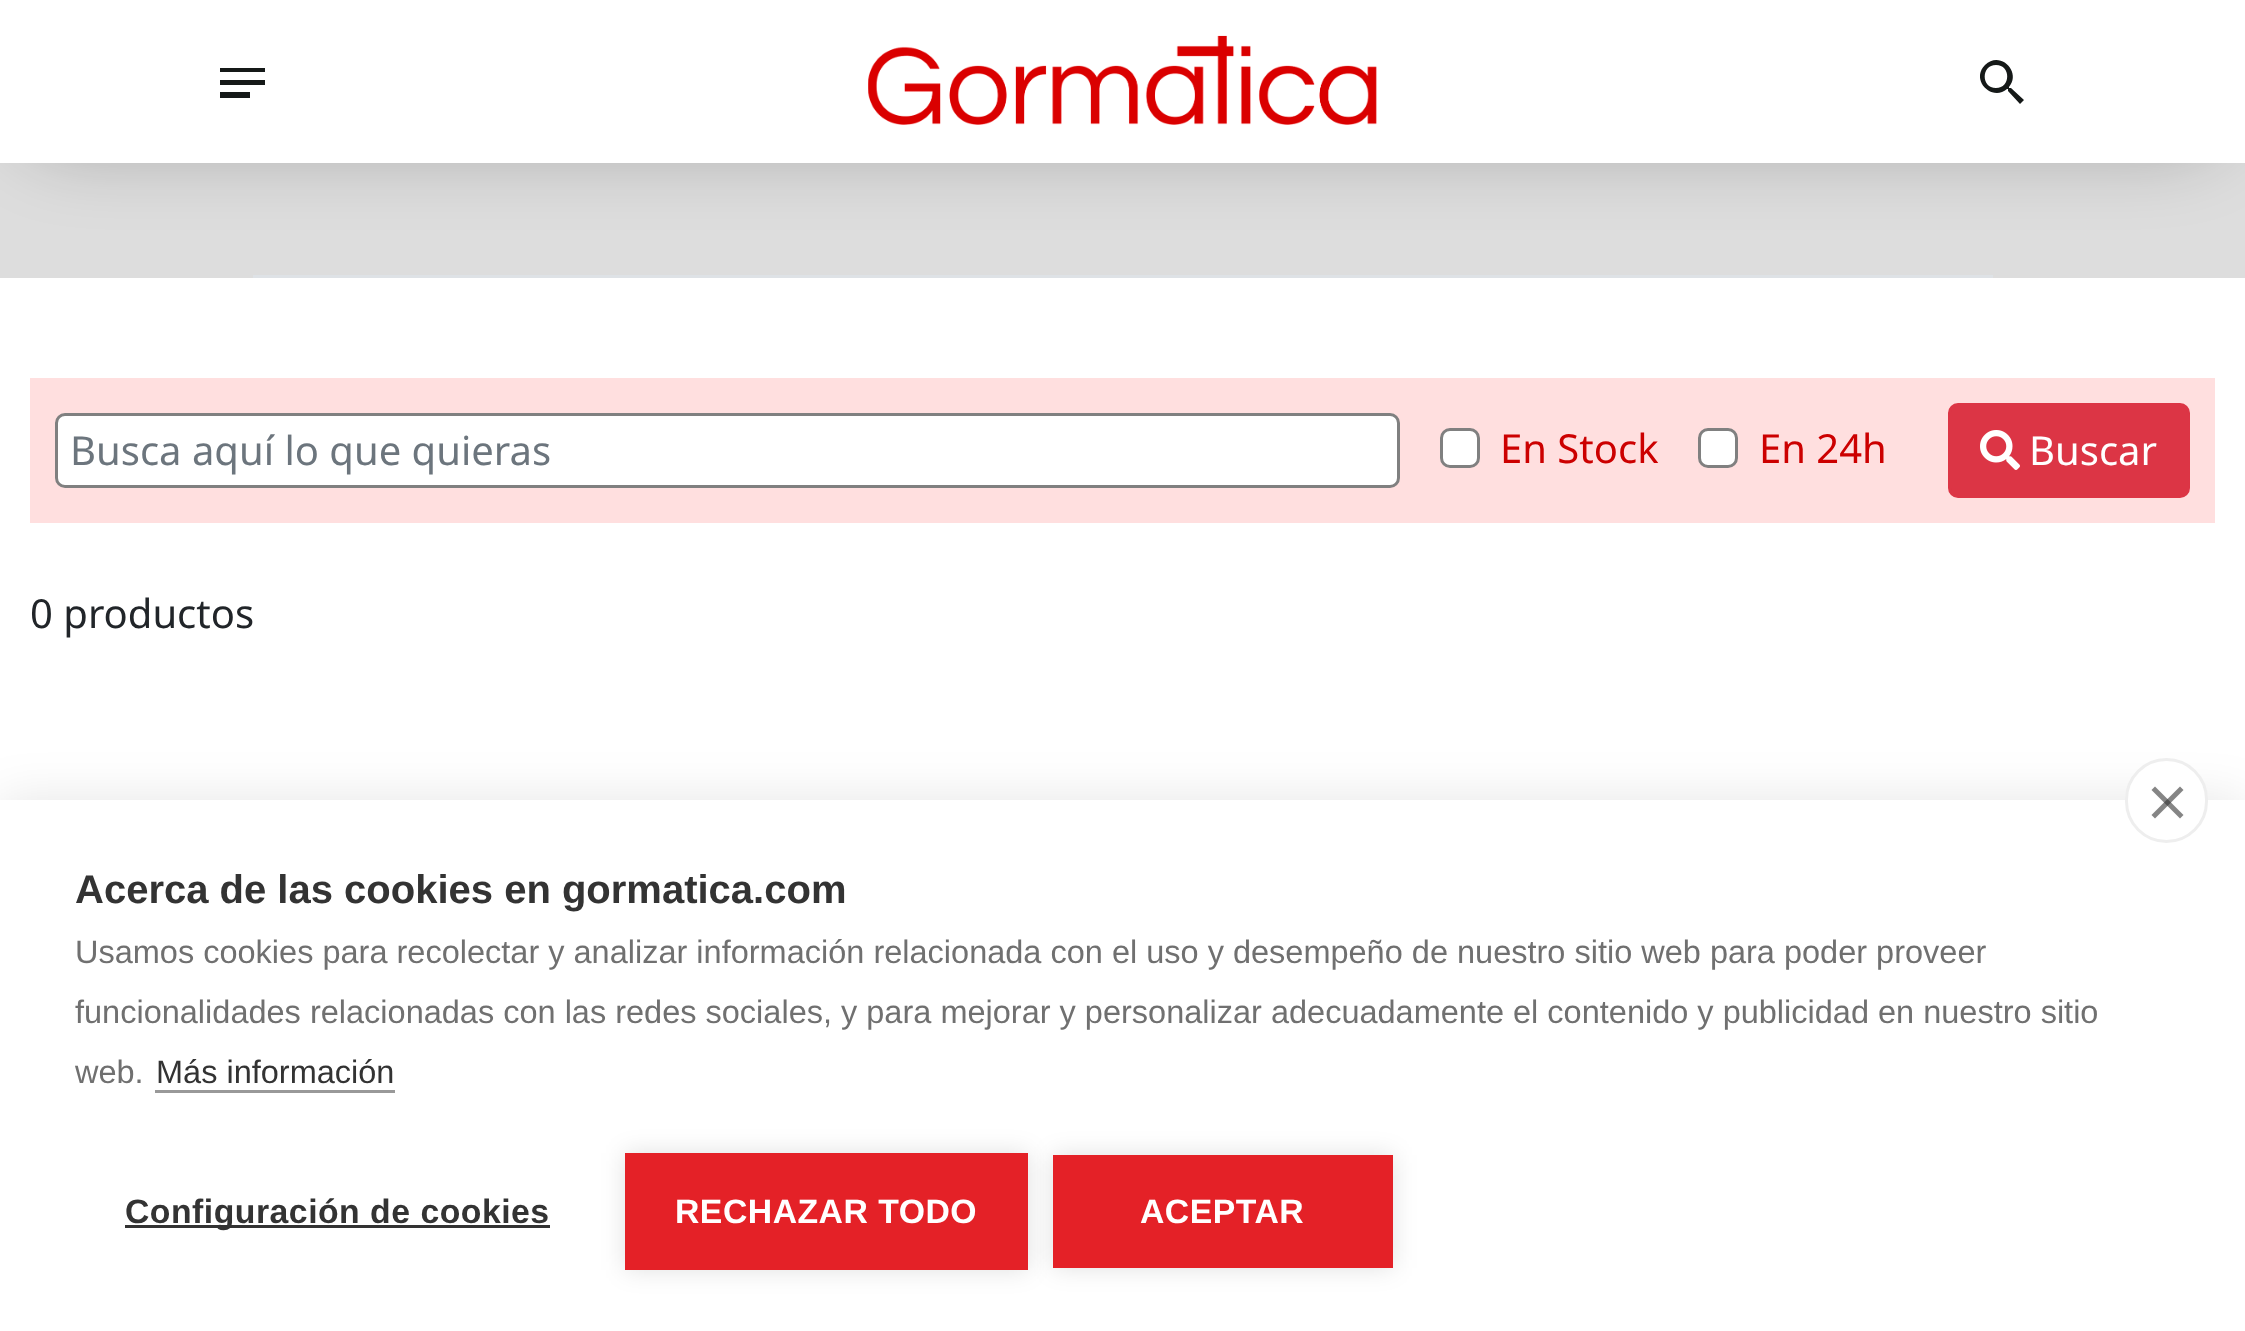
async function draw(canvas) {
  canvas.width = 2245
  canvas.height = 1331
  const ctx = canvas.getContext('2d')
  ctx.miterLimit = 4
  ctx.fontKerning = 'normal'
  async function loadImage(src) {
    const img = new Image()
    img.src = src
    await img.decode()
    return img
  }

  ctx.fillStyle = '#fff'
  ctx.fillRect(0, 0, 2245, 1331)
  ctx.fillStyle = '#ddd'
  ctx.fillRect(0, 163, 2245, 115)
  ctx.save()
  ctx.beginPath()
  ctx.rect(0, 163, 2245, 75)
  ctx.clip()
  ctx.fillStyle = '#00000040'
  ctx.filter = 'blur(37.5px)'
  ctx.beginPath()
  ctx.roundRect(13, 25, 2220, 125, 62.5)
  ctx.fill()
  ctx.filter = 'none'
  ctx.restore()
  ctx.fillStyle = '#151918'
  ctx.beginPath()
  ctx.moveTo(220, 98)
  ctx.lineTo(250, 98)
  ctx.lineTo(250, 92)
  ctx.lineTo(220, 92)
  ctx.closePath()
  ctx.moveTo(220, 68)
  ctx.lineTo(220, 72)
  ctx.lineTo(265, 72)
  ctx.lineTo(265, 68)
  ctx.closePath()
  ctx.moveTo(220, 85)
  ctx.lineTo(265, 85)
  ctx.lineTo(265, 80)
  ctx.lineTo(220, 80)
  ctx.closePath()
  ctx.fill()
  ctx.drawImage(await loadImage('image0.png'), 868, 35, 509, 90)
  ctx.beginPath()
  ctx.moveTo(2011, 88)
  ctx.lineTo(2009, 88)
  ctx.lineTo(2009, 87)
  ctx.bezierCurveTo(2022, 72, 2000, 50, 1985, 65)
  ctx.bezierCurveTo(1970, 80, 1992, 102, 2007, 89)
  ctx.lineTo(2008, 89)
  ctx.lineTo(2008, 91)
  ctx.lineTo(2020, 104)
  ctx.lineTo(2024, 100)
  ctx.closePath()
  ctx.moveTo(1996, 88)
  ctx.bezierCurveTo(1981, 88, 1981, 65, 1996, 65)
  ctx.bezierCurveTo(2011, 65, 2011, 88, 1996, 88)
  ctx.closePath()
  ctx.fill()
  ctx.fillStyle = '#dee2e6'
  ctx.fillRect(253, 275, 1740, 3)
  ctx.fillStyle = '#ffdfdf'
  ctx.fillRect(30, 378, 2185, 145)
  ctx.fillStyle = '#fff'
  ctx.beginPath()
  ctx.roundRect(56.5, 414.5, 1342, 72, 8.5)
  ctx.fill()
  ctx.strokeStyle = '#808080'
  ctx.lineWidth = 3
  ctx.stroke()
  ctx.font = '40px Noto Sans'
  ctx.fillStyle = '#6c757d'
  ctx.fillText('Busca aquí lo que quieras', 70, 465)
  ctx.fillStyle = '#fff'
  ctx.beginPath()
  ctx.roundRect(1441.5, 429.5, 37, 37, 8.5)
  ctx.fill()
  ctx.stroke()
  ctx.fillStyle = '#c00'
  ctx.fillText('En Stock', 1500, 463)
  ctx.fillStyle = '#fff'
  ctx.beginPath()
  ctx.roundRect(1699.5, 429.5, 37, 37, 8.5)
  ctx.fill()
  ctx.stroke()
  ctx.fillStyle = '#c00'
  ctx.fillText('En 24h', 1759, 463)
  ctx.fillStyle = '#dc3545'
  ctx.beginPath()
  ctx.roundRect(1949.5, 404.5, 239, 92, 8.5)
  ctx.fill()
  ctx.strokeStyle = '#dc3545'
  ctx.stroke()
  ctx.drawImage(await loadImage('image1.png'), 1980, 430, 40, 40)
  ctx.fillStyle = '#fff'
  ctx.fillText('Buscar', 2029, 465)
  ctx.fillStyle = '#212529'
  ctx.fillText('0 productos', 30, 628)
  ctx.fillStyle = '#0000001a'
  ctx.filter = 'blur(25px)'
  ctx.beginPath()
  ctx.rect(0, 800, 2245, 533)
  ctx.fill()
  ctx.filter = 'none'
  ctx.fillStyle = '#fff'
  ctx.fillRect(0, 800, 2245, 531)
  ctx.beginPath()
  ctx.roundRect(2126.5, 759.5, 80, 82, 40)
  ctx.fill()
  ctx.strokeStyle = '#eee'
  ctx.stroke()
  ctx.fillStyle = '#858585'
  ctx.beginPath()
  ctx.moveTo(2151.5, 815)
  ctx.lineTo(2180, 786.5)
  ctx.lineTo(2183.5, 790)
  ctx.lineTo(2155, 818.5)
  ctx.closePath()
  ctx.fill()
  ctx.fillStyle = '#33333399'
  ctx.beginPath()
  ctx.moveTo(2155, 786.5)
  ctx.lineTo(2183.5, 815)
  ctx.lineTo(2180, 818.5)
  ctx.lineTo(2151.5, 790)
  ctx.closePath()
  ctx.fill()
  ctx.font = 'bold 40px Liberation Sans'
  ctx.fillStyle = '#333'
  ctx.fillText('Acerca de las cookies en gormatica.com', 75, 903)
  ctx.font = '32.5px Liberation Sans'
  ctx.fillStyle = '#707070'
  ctx.fillText('Usamos cookies para recolectar y analizar información relacionada con el uso y desempeño de nuestro sitio web para poder proveer', 75, 963)
  ctx.fillText('funcionalidades relacionadas con las redes sociales, y para mejorar y personalizar adecuadamente el contenido y publicidad en nuestro sitio', 75, 1023)
  ctx.fillText('web.', 75, 1083)
  ctx.fillStyle = '#333'
  ctx.fillText('Más información', 156, 1083)
  ctx.fillStyle = '#999'
  ctx.fillRect(155, 1090, 240, 3)
  ctx.fillStyle = '#333'
  ctx.fillRect(125, 1225, 425, 3)
  ctx.letterSpacing = '0.5px'
  ctx.font = 'bold 33.75px Liberation Sans'
  ctx.fillText('Configuración de cookies', 125, 1223)
  ctx.fillStyle = '#0000001f'
  ctx.filter = 'blur(12.5px)'
  ctx.beginPath()
  ctx.rect(625, 1153, 403, 117)
  ctx.fill()
  ctx.filter = 'none'
  ctx.fillStyle = '#e42127'
  ctx.fillRect(625, 1153, 403, 117)
  ctx.fillStyle = '#fff'
  ctx.fillText('RECHAZAR TODO', 675, 1223)
  ctx.fillStyle = '#0000001f'
  ctx.filter = 'blur(12.5px)'
  ctx.beginPath()
  ctx.rect(1053, 1155, 340, 113)
  ctx.fill()
  ctx.filter = 'none'
  ctx.fillStyle = '#e42127'
  ctx.fillRect(1053, 1155, 340, 113)
  ctx.fillStyle = '#fff'
  ctx.fillText('ACEPTAR', 1140, 1223)
}

draw(document.querySelector('canvas'))
